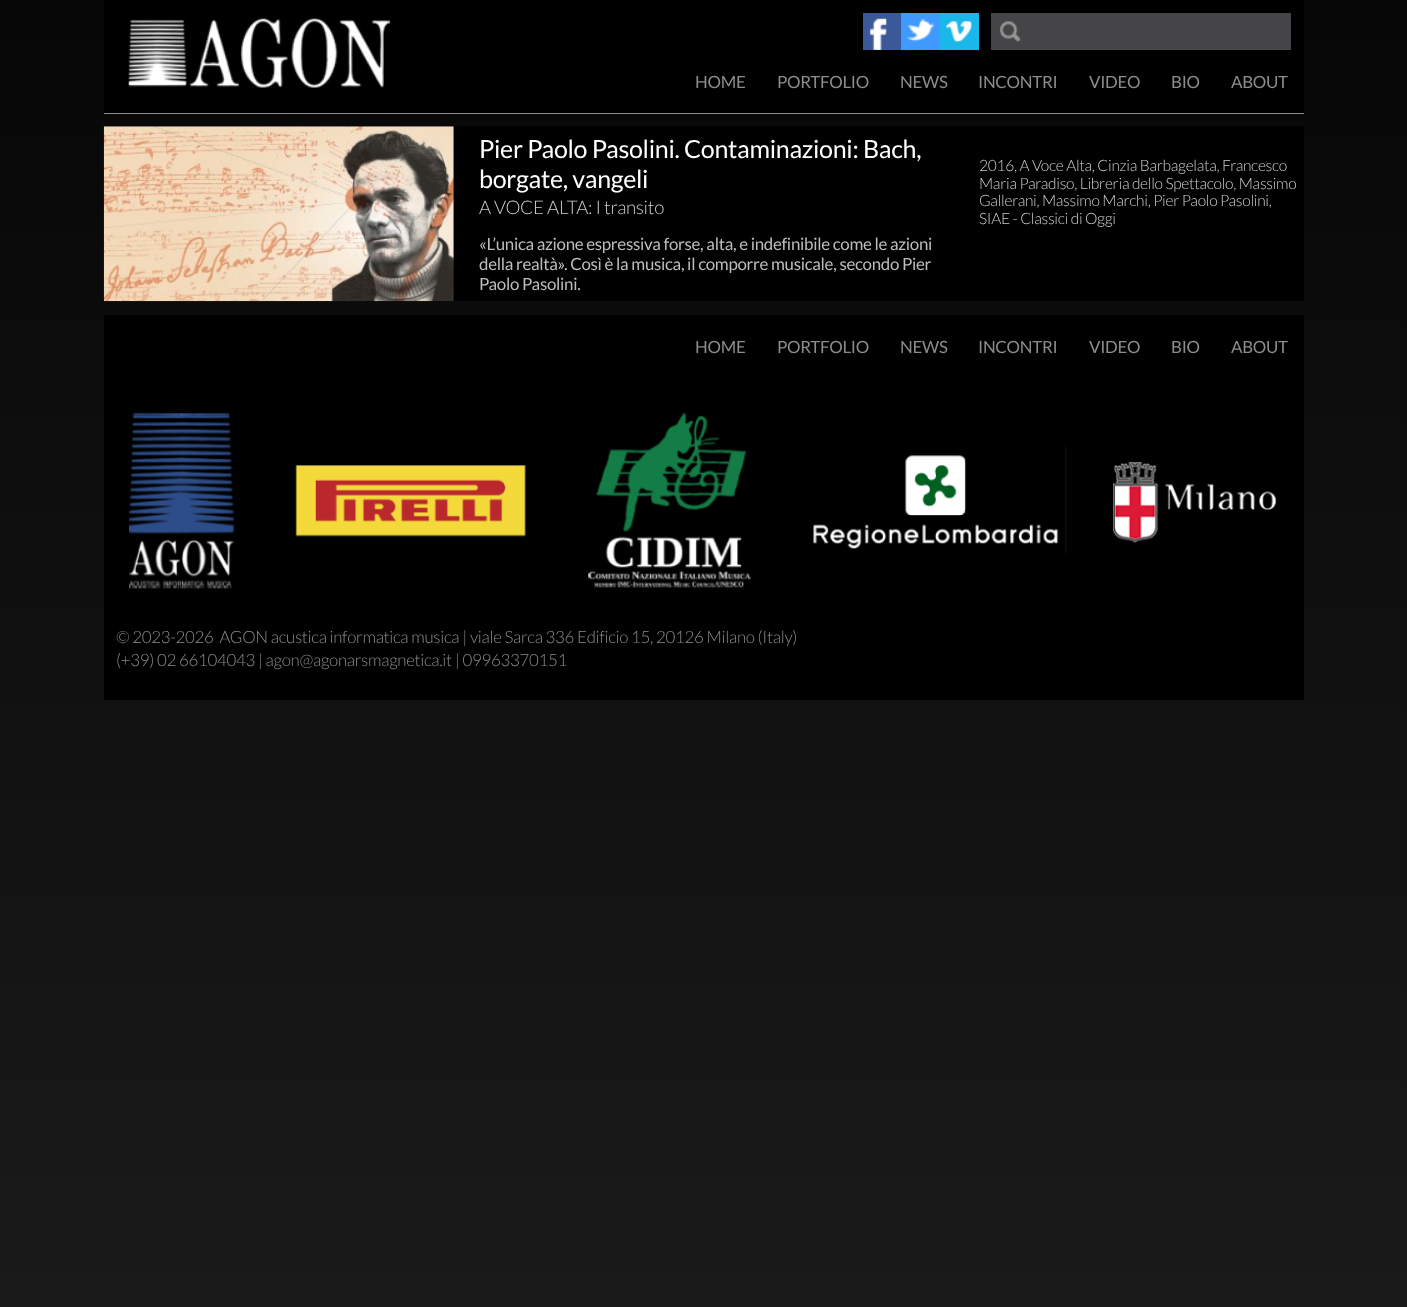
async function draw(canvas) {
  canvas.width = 1407
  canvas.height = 1307
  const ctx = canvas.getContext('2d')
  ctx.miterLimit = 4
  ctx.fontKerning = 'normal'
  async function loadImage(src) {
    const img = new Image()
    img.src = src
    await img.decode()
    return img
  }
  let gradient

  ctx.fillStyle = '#fff'
  ctx.fillRect(0, 0, 1407, 1307)
  gradient = ctx.createLinearGradient(704, 0, 704, 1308)
  gradient.addColorStop(0, '#070707')
  gradient.addColorStop(1, '#1a1a1a')
  ctx.fillStyle = gradient
  ctx.fillRect(0, 0, 1407, 1307)
  ctx.fillStyle = '#000'
  ctx.fillRect(104, 0, 1200, 113)
  ctx.fillStyle = '#8c8c8c'
  ctx.fillRect(104, 113, 1200, 1)
  ctx.drawImage(await loadImage('image0.png'), 128, 18, 263, 70)
  ctx.fillStyle = '#3b5998'
  ctx.fillRect(863, 13, 38, 37)
  ctx.drawImage(await loadImage('image1.png'), 869, 18, 18, 32)
  ctx.fillStyle = '#4099ff'
  ctx.fillRect(901, 13, 39, 37)
  ctx.drawImage(await loadImage('image2.png'), 906, 18, 29, 24)
  ctx.fillStyle = '#1ab7ea'
  ctx.fillRect(940, 13, 39, 37)
  ctx.drawImage(await loadImage('image3.png'), 946, 21, 26, 21)
  ctx.fillStyle = '#454547'
  ctx.fillRect(991, 13, 300, 37)
  ctx.drawImage(await loadImage('image4.png'), 999, 21, 22, 21)
  ctx.letterSpacing = '-0.3px'
  ctx.font = '16.9px Lato'
  ctx.fillStyle = '#8c8c8c'
  ctx.fillText('HOME', 695, 88)
  ctx.fillText('PORTFOLIO', 777, 88)
  ctx.fillText('NEWS', 900, 88)
  ctx.fillText('INCONTRI', 978, 88)
  ctx.fillText('VIDEO', 1089, 88)
  ctx.fillText('BIO', 1171, 88)
  ctx.fillText('ABOUT', 1231, 88)
  ctx.fillStyle = '#000'
  ctx.fillRect(104, 126, 1200, 175)
  ctx.drawImage(await loadImage('image5.png'), 103, 126, 351, 176)
  ctx.font = '25px Lato'
  ctx.fillStyle = '#fff'
  ctx.fillText('Pier Paolo Pasolini. Contaminazioni: Bach,', 479, 158)
  ctx.fillText('borgate, vangeli', 479, 188)
  ctx.font = '300 18.75px Lato'
  ctx.fillStyle = '#ccc'
  ctx.fillText('A VOCE ALTA: I transito', 479, 214)
  ctx.font = '16.9px Lato'
  ctx.fillStyle = '#bdbdbd'
  ctx.fillText('«L’unica azione espressiva forse, alta, e indefinibile come le azioni', 479, 250)
  ctx.fillText('della realtà». Così è la musica, il comporre musicale, secondo Pier', 479, 270)
  ctx.fillText('Paolo Pasolini.', 479, 290)
  ctx.font = '300 15.6px Lato'
  ctx.fillStyle = '#ccc'
  ctx.fillText('2016, A Voce Alta, Cinzia Barbagelata, Francesco', 979, 171)
  ctx.fillText('Maria Paradiso, Libreria dello Spettacolo, Massimo', 979, 189)
  ctx.fillText('Gallerani, Massimo Marchi, Pier Paolo Pasolini,', 979, 206)
  ctx.fillText('SIAE - Classici di Oggi', 979, 224)
  ctx.fillStyle = '#000'
  ctx.fillRect(104, 315, 1200, 385)
  ctx.font = '16.9px Lato'
  ctx.fillStyle = '#8c8c8c'
  ctx.fillText('HOME', 695, 353)
  ctx.fillText('PORTFOLIO', 777, 353)
  ctx.fillText('NEWS', 900, 353)
  ctx.fillText('INCONTRI', 978, 353)
  ctx.fillText('VIDEO', 1089, 353)
  ctx.fillText('BIO', 1171, 353)
  ctx.fillText('ABOUT', 1231, 353)
  ctx.drawImage(await loadImage('image6.png'), 129, 413, 1148, 176)
  ctx.font = '300 16.9px Lato'
  ctx.fillText('© 2023-2026  AGON acustica informatica musica | viale Sarca 336 Edificio 15, 20126 Milano (Italy)', 116, 643)
  ctx.fillText('(+39) 02 66104043 | agon@agonarsmagnetica.it | 09963370151', 116, 666)
}

draw(document.querySelector('canvas'))
